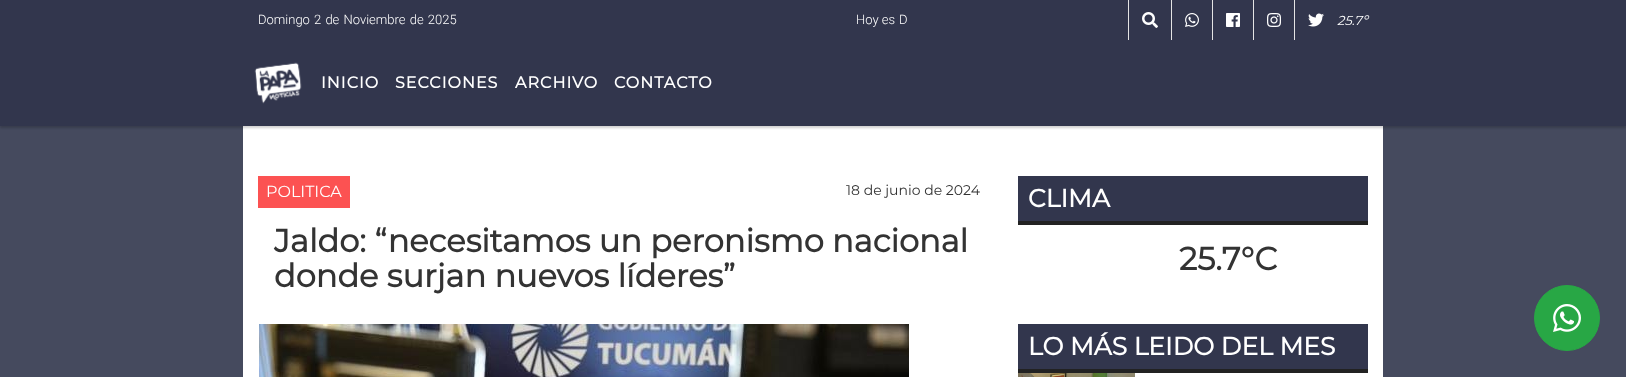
async function draw(canvas) {
  canvas.width = 1626
  canvas.height = 377
  const ctx = canvas.getContext('2d')
  ctx.miterLimit = 4
  ctx.fontKerning = 'normal'
  async function loadImage(src) {
    const img = new Image()
    img.src = src
    await img.decode()
    return img
  }

  ctx.fillStyle = '#454a5e'
  ctx.fillRect(0, 0, 1626, 377)
  ctx.fillStyle = '#32364d'
  ctx.fillRect(0, 0, 1626, 40)
  ctx.font = '300 13px Roboto'
  ctx.fillStyle = '#fff'
  ctx.fillText('Domingo', 258, 24)
  ctx.wordSpacing = '1px'
  ctx.fillText('2 de Noviembre de 2025', 314, 24)
  ctx.wordSpacing = '0px'
  ctx.fillText('Hoy es', 856, 24)
  ctx.fillText('D', 899, 24)
  ctx.fillStyle = '#e4e4e4'
  ctx.fillRect(1128, 0, 1, 40)
  ctx.drawImage(await loadImage('image0.png'), 1142, 12, 16, 16)
  ctx.fillRect(1171, 0, 1, 40)
  ctx.drawImage(await loadImage('image1.png'), 1185, 13, 14, 14)
  ctx.fillRect(1212, 0, 1, 40)
  ctx.drawImage(await loadImage('image2.png'), 1226, 13, 14, 14)
  ctx.fillRect(1253, 0, 1, 40)
  ctx.drawImage(await loadImage('image3.png'), 1267, 13, 14, 14)
  ctx.fillRect(1294, 0, 1, 40)
  ctx.drawImage(await loadImage('image4.png'), 1308, 13, 16, 14)
  ctx.font = 'italic 100 13px Montserrat'
  ctx.fillStyle = '#fff'
  ctx.fillText('25.7º', 1337, 25)
  ctx.fillRect(243, 126, 1140, 251)
  ctx.fillStyle = '#0000002e'
  ctx.filter = 'blur(1px)'
  ctx.beginPath()
  ctx.rect(0, 42, 1626, 86)
  ctx.fill()
  ctx.filter = 'none'
  ctx.fillStyle = '#32364d'
  ctx.fillRect(0, 40, 1626, 86)
  ctx.drawImage(await loadImage('image5.png'), 254, 62, 48, 42)
  ctx.letterSpacing = '1px'
  ctx.font = 'bold 16px Montserrat'
  ctx.fillStyle = '#fff'
  ctx.fillText('INICIO', 321, 88)
  ctx.fillText('SECCIONES', 395, 88)
  ctx.fillText('ARCHIVO', 515, 88)
  ctx.fillText('CONTACTO', 614, 88)
  ctx.fillStyle = '#fc5252'
  ctx.fillRect(258, 176, 92, 32)
  ctx.letterSpacing = '0px'
  ctx.font = '100 16px Montserrat'
  ctx.fillStyle = '#fff'
  ctx.fillText('POLITICA', 266, 197)
  ctx.font = '100 14px Montserrat'
  ctx.fillStyle = '#333'
  ctx.fillText('18 de junio de 2024', 846, 195)
  ctx.font = 'bold 32px Montserrat'
  ctx.fillText('Jaldo: “necesitamos un peronismo nacional', 274, 252)
  ctx.fillText('donde surjan nuevos líderes”', 274, 287)
  ctx.drawImage(await loadImage('image6.png'), 259, 324, 650, 53)
  ctx.fillStyle = '#32364d'
  ctx.fillRect(1018, 176, 350, 45)
  ctx.fillStyle = '#222'
  ctx.fillRect(1018, 221, 350, 4)
  ctx.font = 'bold 25px Montserrat'
  ctx.fillStyle = '#fff'
  ctx.fillText('CLIMA', 1028, 207)
  ctx.font = 'bold 32px Montserrat'
  ctx.fillStyle = '#333'
  ctx.fillText('25.7°C', 1179, 270)
  ctx.fillStyle = '#32364d'
  ctx.fillRect(1018, 324, 350, 45)
  ctx.fillStyle = '#222'
  ctx.fillRect(1018, 369, 350, 4)
  ctx.font = 'bold 25px Montserrat'
  ctx.fillStyle = '#fff'
  ctx.fillText('LO MÁS LEIDO DEL MES', 1028, 355)
  ctx.drawImage(await loadImage('image7.png'), 1018, 373, 117, 4)
  ctx.fillStyle = '#28a745'
  ctx.beginPath()
  ctx.arc(1567, 318, 32.5, 0, 2 * Math.PI)
  ctx.fill()
  ctx.strokeStyle = '#28a745'
  ctx.stroke()
  ctx.drawImage(await loadImage('image8.png'), 1553, 304, 28, 28)
}

draw(document.querySelector('canvas'))
